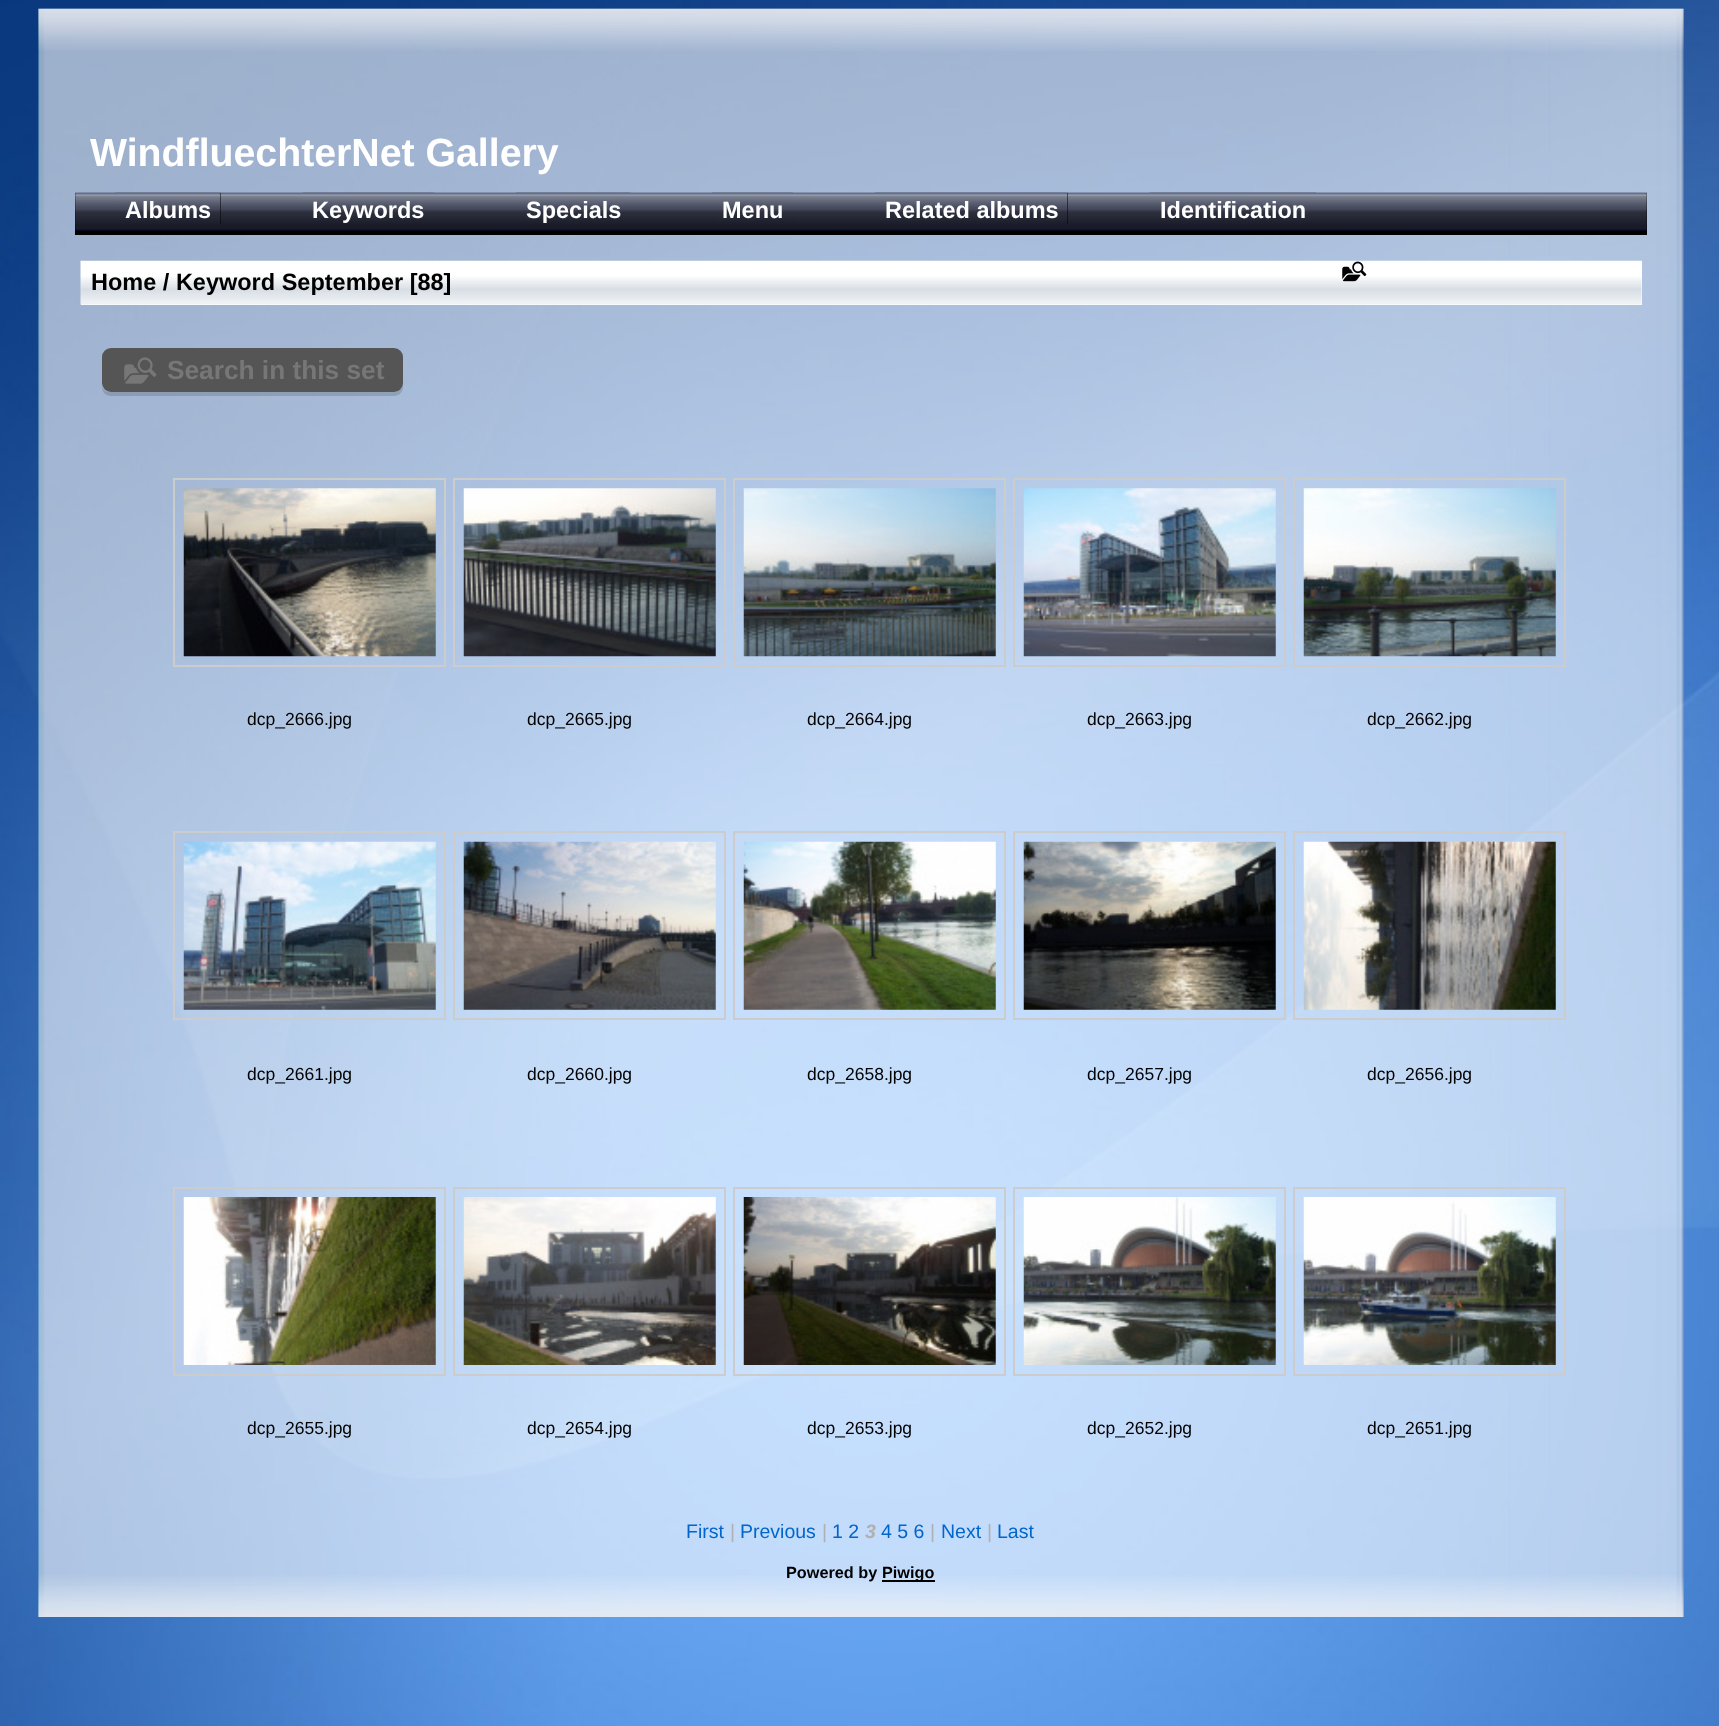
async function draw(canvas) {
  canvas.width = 1719
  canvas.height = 1726
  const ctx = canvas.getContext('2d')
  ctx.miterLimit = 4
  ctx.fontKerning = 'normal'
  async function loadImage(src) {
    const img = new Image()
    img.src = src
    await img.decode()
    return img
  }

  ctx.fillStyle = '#fff'
  ctx.fillRect(0, 0, 1719, 1726)
  ctx.drawImage(await loadImage('image0.png'), 0, 0, 1719, 1726)
  ctx.drawImage(await loadImage('image1.png'), 38, 8, 1646, 1609)
  ctx.drawImage(await loadImage('image2.png'), 38, 8, 1646, 43)
  ctx.font = 'bold 39.25px Liberation Sans'
  ctx.fillText('WindfluechterNet Gallery', 90, 166)
  ctx.fillStyle = '#000'
  ctx.fillRect(75, 193, 1572, 42)
  ctx.drawImage(await loadImage('image3.png'), 75, 192, 1572, 39)
  ctx.fillRect(220, 193, 1, 31)
  ctx.drawImage(await loadImage('image4.png'), 115, 192, 106, 32)
  ctx.font = 'bold 23.5px Liberation Sans'
  ctx.fillStyle = '#fff'
  ctx.fillText('Albums', 125, 218)
  ctx.drawImage(await loadImage('image5.png'), 302, 192, 132, 32)
  ctx.fillText('Keywords', 312, 218)
  ctx.drawImage(await loadImage('image6.png'), 516, 192, 114, 32)
  ctx.fillText('Specials', 526, 218)
  ctx.drawImage(await loadImage('image7.png'), 712, 192, 81, 32)
  ctx.fillText('Menu', 722, 218)
  ctx.fillStyle = '#000'
  ctx.fillRect(1067, 193, 1, 31)
  ctx.drawImage(await loadImage('image8.png'), 875, 192, 193, 32)
  ctx.fillStyle = '#fff'
  ctx.fillText('Related albums', 885, 218)
  ctx.drawImage(await loadImage('image9.png'), 1149, 192, 167, 32)
  ctx.fillText('Identification', 1160, 218)
  ctx.fillRect(81, 261, 1561, 44)
  ctx.drawImage(await loadImage('image10.png'), 80, 260, 1562, 45)
  ctx.fillStyle = '#000'
  ctx.fillText('Home / Keyword September [88]', 91, 290)
  ctx.drawImage(await loadImage('image11.png'), 1342, 261, 25, 21)
  ctx.fillStyle = '#00000024'
  ctx.beginPath()
  ctx.moveTo(102, 386)
  ctx.lineTo(102, 387)
  ctx.bezierCurveTo(102, 392, 106, 396, 111, 396)
  ctx.lineTo(394, 396)
  ctx.bezierCurveTo(399, 396, 403, 392, 403, 387)
  ctx.lineTo(403, 361)
  ctx.lineTo(402, 358)
  ctx.lineTo(402, 383)
  ctx.bezierCurveTo(402, 388, 399, 392, 394, 392)
  ctx.lineTo(110, 392)
  ctx.bezierCurveTo(106, 392, 103, 390, 102, 386)
  ctx.closePath()
  ctx.fill()
  ctx.fillStyle = '#555'
  ctx.beginPath()
  ctx.roundRect(102, 348, 301, 44, 9)
  ctx.fill()
  ctx.drawImage(await loadImage('image12.png'), 124, 357, 33, 27)
  ctx.font = 'bold 26.25px Liberation Sans'
  ctx.fillStyle = '#777'
  ctx.fillText('Search in this set', 167, 379)
  ctx.strokeStyle = '#ccc'
  ctx.lineWidth = 2
  ctx.strokeRect(174, 479, 271, 187)
  ctx.drawImage(await loadImage('image13.png'), 183, 488, 253, 169)
  ctx.font = '17.5px Liberation Sans'
  ctx.fillStyle = '#000'
  ctx.fillText('dcp_2666.jpg', 247, 725)
  ctx.strokeRect(454, 479, 271, 187)
  ctx.drawImage(await loadImage('image14.png'), 463, 488, 253, 169)
  ctx.fillText('dcp_2665.jpg', 527, 725)
  ctx.strokeRect(734, 479, 271, 187)
  ctx.drawImage(await loadImage('image15.png'), 743, 488, 253, 169)
  ctx.fillText('dcp_2664.jpg', 807, 725)
  ctx.strokeRect(1014, 479, 271, 187)
  ctx.drawImage(await loadImage('image16.png'), 1023, 488, 253, 169)
  ctx.fillText('dcp_2663.jpg', 1087, 725)
  ctx.strokeRect(1294, 479, 271, 187)
  ctx.drawImage(await loadImage('image17.png'), 1303, 488, 253, 169)
  ctx.fillText('dcp_2662.jpg', 1367, 725)
  ctx.strokeRect(174, 832, 271, 187)
  ctx.drawImage(await loadImage('image18.png'), 183, 841, 253, 169)
  ctx.fillText('dcp_2661.jpg', 247, 1080)
  ctx.strokeRect(454, 832, 271, 187)
  ctx.drawImage(await loadImage('image19.png'), 463, 841, 253, 169)
  ctx.fillText('dcp_2660.jpg', 527, 1080)
  ctx.strokeRect(734, 832, 271, 187)
  ctx.drawImage(await loadImage('image20.png'), 743, 841, 253, 169)
  ctx.fillText('dcp_2658.jpg', 807, 1080)
  ctx.strokeRect(1014, 832, 271, 187)
  ctx.drawImage(await loadImage('image21.png'), 1023, 841, 253, 169)
  ctx.fillText('dcp_2657.jpg', 1087, 1080)
  ctx.strokeRect(1294, 832, 271, 187)
  ctx.drawImage(await loadImage('image22.png'), 1303, 841, 253, 169)
  ctx.fillText('dcp_2656.jpg', 1367, 1080)
  ctx.strokeRect(174, 1188, 271, 187)
  ctx.drawImage(await loadImage('image23.png'), 183, 1197, 253, 168)
  ctx.fillText('dcp_2655.jpg', 247, 1434)
  ctx.strokeRect(454, 1188, 271, 187)
  ctx.drawImage(await loadImage('image24.png'), 463, 1197, 253, 168)
  ctx.fillText('dcp_2654.jpg', 527, 1434)
  ctx.strokeRect(734, 1188, 271, 187)
  ctx.drawImage(await loadImage('image25.png'), 743, 1197, 253, 168)
  ctx.fillText('dcp_2653.jpg', 807, 1434)
  ctx.strokeRect(1014, 1188, 271, 187)
  ctx.drawImage(await loadImage('image26.png'), 1023, 1197, 253, 168)
  ctx.fillText('dcp_2652.jpg', 1087, 1434)
  ctx.strokeRect(1294, 1188, 271, 187)
  ctx.drawImage(await loadImage('image27.png'), 1303, 1197, 253, 168)
  ctx.fillText('dcp_2651.jpg', 1367, 1434)
  ctx.font = '19.5px Liberation Sans'
  ctx.fillStyle = '#06c'
  ctx.fillText('First', 686, 1538)
  ctx.fillStyle = '#b0b0b0'
  ctx.fillText('|', 730, 1538)
  ctx.fillStyle = '#06c'
  ctx.fillText('Previous', 740, 1538)
  ctx.fillStyle = '#b0b0b0'
  ctx.fillText('|', 822, 1538)
  ctx.fillStyle = '#06c'
  ctx.fillText('1 2', 832, 1538)
  ctx.font = 'italic bold 19.5px Liberation Sans'
  ctx.fillStyle = '#b0b0b0'
  ctx.fillText('3', 865, 1538)
  ctx.font = '19.5px Liberation Sans'
  ctx.fillStyle = '#06c'
  ctx.fillText('4 5 6', 881, 1538)
  ctx.fillStyle = '#b0b0b0'
  ctx.fillText('|', 930, 1538)
  ctx.fillStyle = '#06c'
  ctx.fillText('Next', 941, 1538)
  ctx.fillStyle = '#b0b0b0'
  ctx.fillText('|', 987, 1538)
  ctx.fillStyle = '#06c'
  ctx.fillText('Last', 997, 1538)
  ctx.drawImage(await loadImage('image28.png'), 38, 1575, 1646, 42)
  ctx.font = 'bold 16.25px Liberation Sans'
  ctx.fillStyle = '#000'
  ctx.fillText('Powered by', 786, 1578)
  ctx.fillRect(882, 1580, 53, 2)
  ctx.fillText('Piwigo', 882, 1578)
}

draw(document.querySelector('canvas'))
